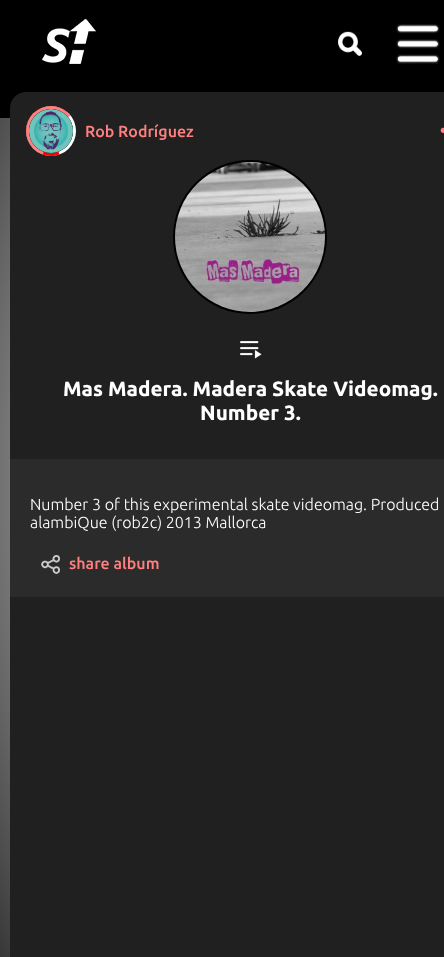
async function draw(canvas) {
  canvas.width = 444
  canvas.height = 957
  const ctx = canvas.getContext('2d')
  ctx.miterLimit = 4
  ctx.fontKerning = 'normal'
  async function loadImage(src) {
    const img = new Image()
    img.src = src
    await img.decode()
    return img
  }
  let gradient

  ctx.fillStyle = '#fff'
  ctx.fillRect(0, 0, 444, 957)
  gradient = ctx.createRadialGradient(222, 222.17, 0, 222, 222.17, 314)
  gradient.addColorStop(0, '#fff')
  gradient.addColorStop(1, '#373737')
  ctx.fillStyle = gradient
  ctx.beginPath()
  ctx.rect(0, 118, 10, 839)
  ctx.save()
  ctx.clip()
  ctx.scale(1, 677 / 314)
  ctx.fillRect(0, 0, 444, 444)
  ctx.restore()
  ctx.fillStyle = '#000'
  ctx.fillRect(0, 0, 444, 118)
  ctx.drawImage(await loadImage('image0.png'), 42, 19, 54, 45)
  ctx.drawImage(await loadImage('image1.png'), 338, 31, 24, 25)
  ctx.drawImage(await loadImage('image2.png'), 396, 24, 44, 40)
  ctx.fillStyle = '#202020'
  ctx.beginPath()
  ctx.roundRect(10, 92, 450, 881, 16)
  ctx.fill()
  ctx.fillStyle = '#fff'
  ctx.beginPath()
  ctx.arc(51, 131, 25, 0, 2 * Math.PI)
  ctx.fill()
  ctx.fillStyle = '#ff000080'
  ctx.beginPath()
  ctx.moveTo(51, 131)
  ctx.lineTo(42.5, 154.5)
  ctx.bezierCurveTo(27, 149, 21, 129.5, 30.5, 116.5)
  ctx.closePath()
  ctx.fill()
  ctx.beginPath()
  ctx.moveTo(51, 131)
  ctx.lineTo(30.5, 116.5)
  ctx.bezierCurveTo(40.5, 103, 60, 102.5, 70.5, 115.5)
  ctx.closePath()
  ctx.fill()
  ctx.fillStyle = '#f00'
  ctx.beginPath()
  ctx.moveTo(51, 131)
  ctx.lineTo(59.5, 154.5)
  ctx.bezierCurveTo(54, 156.5, 48, 156.5, 42.5, 154.5)
  ctx.closePath()
  ctx.fill()
  ctx.fillStyle = '#202020'
  ctx.filter = 'blur(0.5px)'
  ctx.beginPath()
  ctx.roundRect(29, 109, 44, 44, 22)
  ctx.fill()
  ctx.filter = 'none'
  ctx.fillStyle = '#000'
  ctx.beginPath()
  ctx.arc(51, 131, 22, 0, 2 * Math.PI)
  ctx.fill()
  ctx.drawImage(await loadImage('image3.png'), 29, 109, 44, 44)
  ctx.font = '500 16px Ubuntu'
  ctx.fillStyle = '#ff7f7f'
  ctx.fillText('Rob Rodríguez', 85, 137)
  ctx.beginPath()
  ctx.arc(443.3, 130.3, 2.6, 0, 2 * Math.PI)
  ctx.fill()
  ctx.fillStyle = '#000'
  ctx.beginPath()
  ctx.arc(250, 237, 77, 0, 2 * Math.PI)
  ctx.fill()
  ctx.drawImage(await loadImage('image4.png'), 175, 162, 150, 150)
  ctx.drawImage(await loadImage('image5.png'), 239, 341, 23, 18)
  ctx.font = 'bold 20.7px Ubuntu'
  ctx.fillStyle = '#fff'
  ctx.fillText('Mas Madera. Madera Skate Videomag.', 63, 396)
  ctx.fillText('Number 3.', 200, 420)
  ctx.fillStyle = '#2b2b2b'
  ctx.fillRect(10, 459, 434, 138)
  ctx.font = '300 16px Ubuntu'
  ctx.fillStyle = '#fff'
  ctx.fillText('Number 3 of this experimental skate videomag. Produced', 30, 510)
  ctx.fillText('alambiQue (rob2c) 2013 Mallorca', 30, 528)
  ctx.drawImage(await loadImage('image6.png'), 41, 555, 19, 19)
  ctx.font = '500 16px Ubuntu'
  ctx.fillStyle = '#ff7f7f'
  ctx.fillText('share album', 69, 569)
}

draw(document.querySelector('canvas'))
